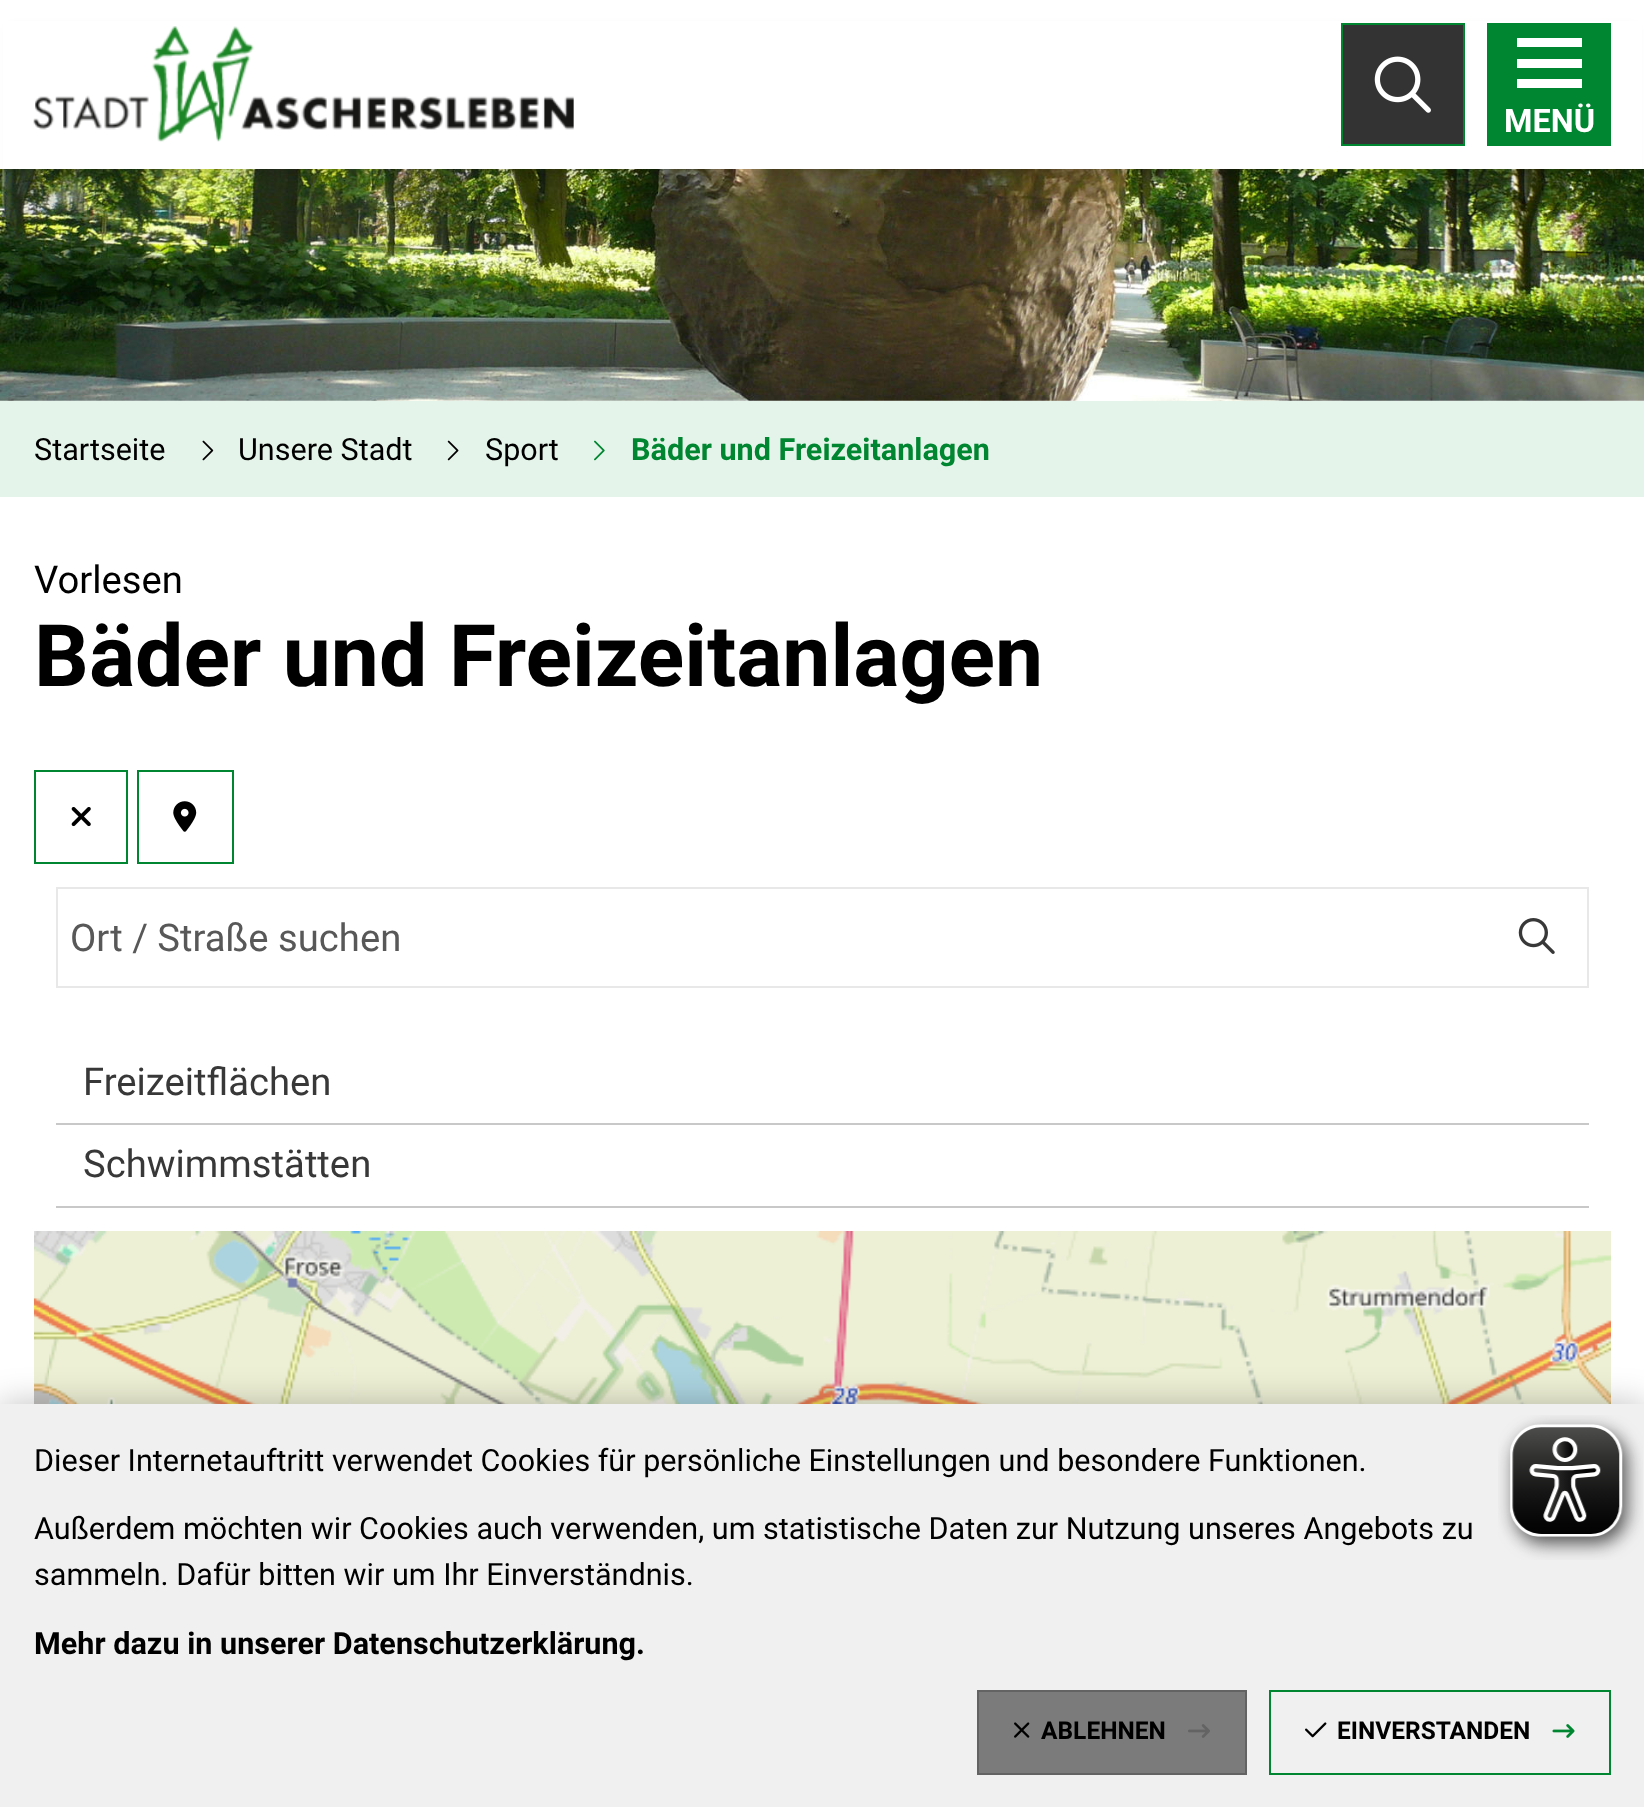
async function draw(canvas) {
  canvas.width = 1644
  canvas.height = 1807
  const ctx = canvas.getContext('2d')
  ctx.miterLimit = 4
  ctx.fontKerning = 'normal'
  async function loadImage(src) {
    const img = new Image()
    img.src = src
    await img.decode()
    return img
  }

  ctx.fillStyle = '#fff'
  ctx.fillRect(0, 0, 1644, 1807)
  ctx.drawImage(await loadImage('image2.png'), 0, 169, 1644, 232)
  ctx.fillStyle = '#00000026'
  ctx.filter = 'blur(5.5px)'
  ctx.beginPath()
  ctx.rect(11, 29, 1623, 147)
  ctx.fill()
  ctx.filter = 'none'
  ctx.fillStyle = '#fff'
  ctx.fillRect(3, 21, 1639, 148)
  ctx.drawImage(await loadImage('image0.png'), 33, 26, 541, 116)
  ctx.fillStyle = '#333'
  ctx.beginPath()
  ctx.rect(1342, 24, 122, 121)
  ctx.fill()
  ctx.strokeStyle = '#008530'
  ctx.lineWidth = 2
  ctx.stroke()
  ctx.drawImage(await loadImage('image1.png'), 1374, 56, 57, 57)
  ctx.fillStyle = '#008530'
  ctx.fillRect(1487, 23, 124, 123)
  ctx.fillStyle = '#fff'
  ctx.fillRect(1517, 38, 65, 9)
  ctx.fillRect(1517, 59, 65, 9)
  ctx.fillRect(1517, 79, 65, 9)
  ctx.font = 'bold 32.5px Roboto'
  ctx.fillText('MENÜ', 1504, 132)
  ctx.fillStyle = '#e5f4ea'
  ctx.fillRect(0, 401, 1644, 96)
  ctx.font = '30.6px Roboto'
  ctx.fillStyle = '#000'
  ctx.fillText('Startseite', 34, 460)
  ctx.drawImage(await loadImage('image3.png'), 202, 440, 12, 21)
  ctx.fillText('Unsere Stadt', 238, 460)
  ctx.drawImage(await loadImage('image4.png'), 447, 440, 12, 21)
  ctx.fillText('Sport', 485, 460)
  ctx.drawImage(await loadImage('image5.png'), 594, 440, 11, 21)
  ctx.font = 'bold 30.6px Roboto'
  ctx.fillStyle = '#008530'
  ctx.fillText('Bäder und Freizeitanlagen', 631, 460)
  ctx.font = '38.25px Roboto'
  ctx.fillStyle = '#000'
  ctx.fillText('Vorlesen', 34, 593)
  ctx.font = 'bold 86px Roboto'
  ctx.fillText('Bäder und Freizeitanlagen', 34, 686)
  ctx.strokeRect(35, 771, 92, 92)
  ctx.drawImage(await loadImage('image6.png'), 71, 807, 20, 20)
  ctx.strokeRect(138, 771, 95, 92)
  ctx.drawImage(await loadImage('image7.png'), 173, 801, 24, 31)
  ctx.strokeStyle = '#e8e8e8'
  ctx.strokeRect(57, 888, 1531, 99)
  ctx.font = '38.25px Roboto'
  ctx.fillStyle = '#585858'
  ctx.fillText('Ort / Straße suchen', 70, 951)
  ctx.drawImage(await loadImage('image8.png'), 1518, 918, 37, 36)
  ctx.fillStyle = '#c8c8c8'
  ctx.fillRect(56, 1123, 1533, 2)
  ctx.fillStyle = '#383838'
  ctx.fillText('Freizeitflächen', 83, 1095)
  ctx.fillStyle = '#c8c8c8'
  ctx.fillRect(56, 1206, 1533, 2)
  ctx.fillStyle = '#383838'
  ctx.fillText('Schwimmstätten', 83, 1177)
  ctx.drawImage(await loadImage('image9.png'), 34, 1231, 15, 173)
  ctx.drawImage(await loadImage('image10.png'), 49, 1231, 576, 173)
  ctx.drawImage(await loadImage('image11.png'), 625, 1231, 576, 173)
  ctx.drawImage(await loadImage('image12.png'), 1201, 1231, 410, 173)
  ctx.fillStyle = '#00000040'
  ctx.filter = 'blur(17px)'
  ctx.beginPath()
  ctx.rect(0, 1404, 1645, 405)
  ctx.fill()
  ctx.filter = 'none'
  ctx.fillStyle = '#f0f0f0'
  ctx.fillRect(0, 1404, 1644, 403)
  ctx.font = '30.6px Roboto'
  ctx.fillStyle = '#000'
  ctx.fillText('Dieser Internetauftritt verwendet Cookies für persönliche Einstellungen und besondere Funktionen.', 34, 1471)
  ctx.fillText('Außerdem möchten wir Cookies auch verwenden, um statistische Daten zur Nutzung unseres Angebots zu', 34, 1539)
  ctx.fillText('sammeln. Dafür bitten wir um Ihr Einverständnis.', 34, 1585)
  ctx.font = 'bold 30.6px Roboto'
  ctx.fillText('Mehr dazu in unserer Datenschutzerklärung.', 34, 1654)
  ctx.fillStyle = '#7b7b7b'
  ctx.beginPath()
  ctx.rect(978, 1691, 268, 83)
  ctx.fill()
  ctx.strokeStyle = '#636363'
  ctx.stroke()
  ctx.drawImage(await loadImage('image13.png'), 1014, 1722, 16, 16)
  ctx.font = 'bold 24.5px Roboto'
  ctx.fillStyle = '#000'
  ctx.fillText('ABLEHNEN', 1041, 1739)
  ctx.drawImage(await loadImage('image14.png'), 1188, 1724, 22, 14)
  ctx.strokeStyle = '#008530'
  ctx.strokeRect(1270, 1691, 340, 83)
  ctx.drawImage(await loadImage('image15.png'), 1305, 1722, 22, 16)
  ctx.fillText('EINVERSTANDEN', 1337, 1739)
  ctx.drawImage(await loadImage('image16.png'), 1552, 1724, 23, 14)
  ctx.drawImage(await loadImage('image17.png'), 1498, 1415, 145, 145)
}

draw(document.querySelector('canvas'))
